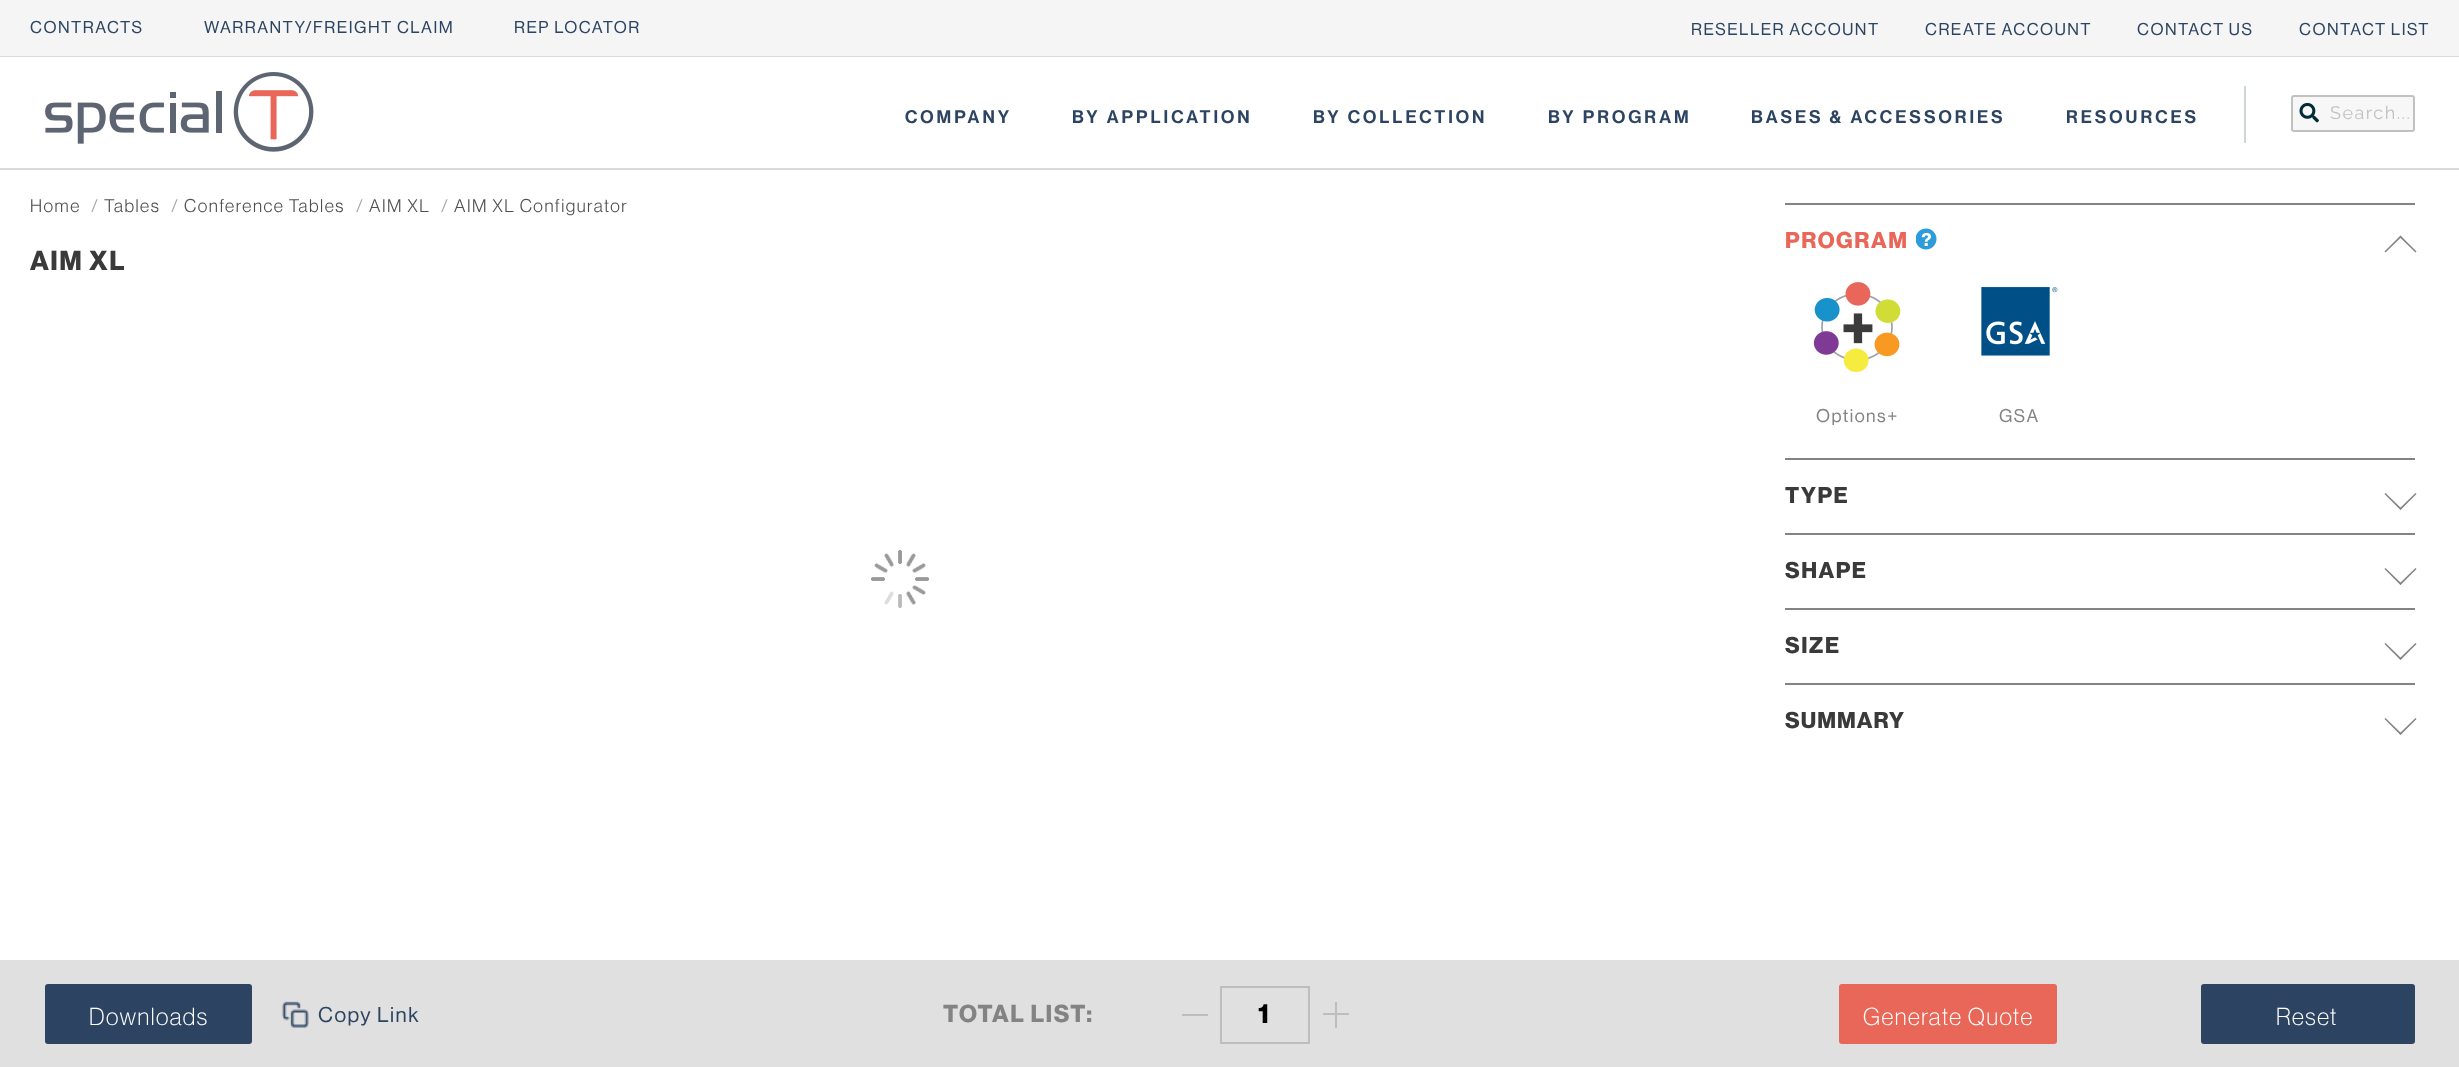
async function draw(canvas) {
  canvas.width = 2459
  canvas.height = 1067
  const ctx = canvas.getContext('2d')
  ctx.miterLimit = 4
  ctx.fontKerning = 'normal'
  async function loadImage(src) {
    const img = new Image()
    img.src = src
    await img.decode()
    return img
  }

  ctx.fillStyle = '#fff'
  ctx.fillRect(0, 0, 2459, 1067)
  ctx.fillStyle = '#f5f5f5'
  ctx.fillRect(0, 0, 2459, 56)
  ctx.fillStyle = '#d9d9d9'
  ctx.fillRect(0, 56, 2459, 1)
  ctx.letterSpacing = '1.5px'
  ctx.font = '500 16.75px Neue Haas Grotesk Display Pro'
  ctx.fillStyle = '#2c4461'
  ctx.fillText('CONTRACTS', 30, 33)
  ctx.fillText('WARRANTY/FREIGHT CLAIM', 204, 33)
  ctx.fillText('REP LOCATOR', 514, 33)
  ctx.fillText('RESELLER ACCOUNT', 1691, 35)
  ctx.fillText('CREATE ACCOUNT', 1925, 35)
  ctx.fillText('CONTACT US', 2137, 35)
  ctx.fillText('CONTACT LIST', 2299, 35)
  ctx.fillStyle = '#d9d9d9'
  ctx.fillRect(0, 168, 2459, 2)
  ctx.drawImage(await loadImage('image0.png'), 45, 72, 269, 80)
  ctx.fillStyle = '#cdd7d6'
  ctx.fillRect(2244, 86, 2, 57)
  ctx.letterSpacing = '3px'
  ctx.font = '500 18px "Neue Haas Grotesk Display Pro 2"'
  ctx.fillStyle = '#2c4461'
  ctx.fillText('COMPANY', 905, 123)
  ctx.fillText('BY APPLICATION', 1072, 123)
  ctx.fillText('BY COLLECTION', 1313, 123)
  ctx.fillText('BY PROGRAM', 1548, 123)
  ctx.fillText('BASES & ACCESSORIES', 1751, 123)
  ctx.fillText('RESOURCES', 2066, 123)
  ctx.fillStyle = '#f7f7f7'
  ctx.beginPath()
  ctx.roundRect(2292, 96, 122, 35, 2)
  ctx.fill()
  ctx.strokeStyle = '#c1c1c2'
  ctx.lineWidth = 2
  ctx.stroke()
  ctx.drawImage(await loadImage('image1.png'), 2299, 102, 20, 21)
  ctx.letterSpacing = '1.5px'
  ctx.font = '18px Raleway'
  ctx.fillStyle = '#c1c1c4'
  ctx.fillText('Search...', 2330, 119)
  ctx.font = '18px Neue Haas Grotesk Display Pro'
  ctx.fillStyle = '#4f4f4f'
  ctx.fillText('Home', 30, 212)
  ctx.fillStyle = '#a4a4a4'
  ctx.fillText('/', 91, 212)
  ctx.fillStyle = '#4f4f4f'
  ctx.fillText('Tables', 104, 212)
  ctx.fillStyle = '#a4a4a4'
  ctx.fillText('/', 171, 212)
  ctx.fillStyle = '#4f4f4f'
  ctx.fillText('Conference Tables', 184, 212)
  ctx.fillStyle = '#a4a4a4'
  ctx.fillText('/', 356, 212)
  ctx.fillStyle = '#4f4f4f'
  ctx.fillText('AIM XL', 369, 212)
  ctx.fillStyle = '#a4a4a4'
  ctx.fillText('/', 441, 212)
  ctx.fillStyle = '#4f4f4f'
  ctx.fillText('AIM XL Configurator', 454, 212)
  ctx.font = 'bold 27px Neue Haas Grotesk Display Pro'
  ctx.fillStyle = '#3a3a3a'
  ctx.fillText('AIM XL', 30, 270)
  ctx.drawImage(await loadImage('image2.png'), 871, 550, 59, 58)
  ctx.fillStyle = '#838383'
  ctx.fillRect(1785, 203, 630, 2)
  ctx.font = 'bold 22.5px Neue Haas Grotesk Display Pro'
  ctx.fillStyle = '#e96758'
  ctx.fillText('PROGRAM', 1785, 248)
  ctx.drawImage(await loadImage('image3.png'), 1916, 228, 21, 22)
  ctx.fillStyle = '#838383'
  ctx.beginPath()
  ctx.moveTo(2385.5, 252.5)
  ctx.lineTo(2384.5, 251.5)
  ctx.lineTo(2400.5, 235.5)
  ctx.lineTo(2401.5, 237)
  ctx.closePath()
  ctx.fill()
  ctx.beginPath()
  ctx.moveTo(2415.5, 252.5)
  ctx.lineTo(2399.5, 237)
  ctx.lineTo(2400.5, 235.5)
  ctx.lineTo(2416.5, 251.5)
  ctx.closePath()
  ctx.fill()
  ctx.drawImage(await loadImage('image4.png'), 1813, 282, 88, 90)
  ctx.font = '500 18px Neue Haas Grotesk Display Pro'
  ctx.fillText('Options+', 1816, 422)
  ctx.drawImage(await loadImage('image5.png'), 1981, 287, 77, 69)
  ctx.fillText('GSA', 1999, 422)
  ctx.fillRect(1785, 458, 630, 2)
  ctx.font = 'bold 22.5px Neue Haas Grotesk Display Pro'
  ctx.fillStyle = '#3a3a3a'
  ctx.fillText('TYPE', 1785, 503)
  ctx.fillStyle = '#838383'
  ctx.beginPath()
  ctx.moveTo(2415.5, 493)
  ctx.lineTo(2416.5, 494)
  ctx.lineTo(2400.5, 510)
  ctx.lineTo(2399.5, 508.5)
  ctx.closePath()
  ctx.fill()
  ctx.beginPath()
  ctx.moveTo(2385.5, 493)
  ctx.lineTo(2401.5, 508.5)
  ctx.lineTo(2400.5, 510)
  ctx.lineTo(2384.5, 494)
  ctx.closePath()
  ctx.fill()
  ctx.fillRect(1785, 533, 630, 2)
  ctx.fillStyle = '#3a3a3a'
  ctx.fillText('SHAPE', 1785, 578)
  ctx.fillStyle = '#838383'
  ctx.beginPath()
  ctx.moveTo(2415.5, 568)
  ctx.lineTo(2416.5, 569)
  ctx.lineTo(2400.5, 585)
  ctx.lineTo(2399.5, 583.5)
  ctx.closePath()
  ctx.fill()
  ctx.beginPath()
  ctx.moveTo(2385.5, 568)
  ctx.lineTo(2401.5, 583.5)
  ctx.lineTo(2400.5, 585)
  ctx.lineTo(2384.5, 569)
  ctx.closePath()
  ctx.fill()
  ctx.fillRect(1785, 608, 630, 2)
  ctx.fillStyle = '#3a3a3a'
  ctx.fillText('SIZE', 1785, 653)
  ctx.fillStyle = '#838383'
  ctx.beginPath()
  ctx.moveTo(2415.5, 643)
  ctx.lineTo(2416.5, 644)
  ctx.lineTo(2400.5, 660)
  ctx.lineTo(2399.5, 658.5)
  ctx.closePath()
  ctx.fill()
  ctx.beginPath()
  ctx.moveTo(2385.5, 643)
  ctx.lineTo(2401.5, 658.5)
  ctx.lineTo(2400.5, 660)
  ctx.lineTo(2384.5, 644)
  ctx.closePath()
  ctx.fill()
  ctx.fillRect(1785, 683, 630, 2)
  ctx.letterSpacing = '1px'
  ctx.fillStyle = '#3a3a3a'
  ctx.fillText('SUMMARY', 1785, 728)
  ctx.fillStyle = '#838383'
  ctx.beginPath()
  ctx.moveTo(2415.5, 718)
  ctx.lineTo(2416.5, 719)
  ctx.lineTo(2400.5, 735)
  ctx.lineTo(2399.5, 733.5)
  ctx.closePath()
  ctx.fill()
  ctx.beginPath()
  ctx.moveTo(2385.5, 718)
  ctx.lineTo(2401.5, 733.5)
  ctx.lineTo(2400.5, 735)
  ctx.lineTo(2384.5, 719)
  ctx.closePath()
  ctx.fill()
  ctx.fillStyle = '#e0e0e0'
  ctx.fillRect(0, 960, 2459, 107)
  ctx.fillStyle = '#2c4461'
  ctx.beginPath()
  ctx.roundRect(46, 985, 205, 58, 2)
  ctx.fill()
  ctx.strokeStyle = '#2c4461'
  ctx.stroke()
  ctx.letterSpacing = '1.5px'
  ctx.font = '24px "Neue Haas Grotesk Display Pro 2"'
  ctx.fillStyle = '#fff'
  ctx.fillText('Downloads', 89, 1025)
  ctx.drawImage(await loadImage('image6.png'), 281, 1001, 28, 27)
  ctx.font = '500 21px Neue Haas Grotesk Display Pro'
  ctx.fillStyle = '#2c4461'
  ctx.fillText('Copy Link', 318, 1022)
  ctx.font = 'bold 24px Neue Haas Grotesk Display Pro'
  ctx.fillStyle = '#838383'
  ctx.fillText('TOTAL LIST:', 943, 1022)
  ctx.fillStyle = '#bdbdbd'
  ctx.fillRect(1182, 1014, 26, 2)
  ctx.strokeStyle = '#bdbdbd'
  ctx.strokeRect(1221, 987, 88, 56)
  ctx.font = 'bold 27px Neue Haas Grotesk Display Pro'
  ctx.fillStyle = '#000'
  ctx.fillText('1', 1258, 1023)
  ctx.fillStyle = '#bdbdbd'
  ctx.fillRect(1323, 1013, 26, 2)
  ctx.fillRect(1335, 1002, 2, 26)
  ctx.fillStyle = '#e96758'
  ctx.beginPath()
  ctx.roundRect(1840, 985, 216, 58, 2)
  ctx.fill()
  ctx.strokeStyle = '#e96758'
  ctx.stroke()
  ctx.font = '24px "Neue Haas Grotesk Display Pro 2"'
  ctx.fillStyle = '#fff'
  ctx.fillText('Generate Quote', 1863, 1025)
  ctx.fillStyle = '#2c4461'
  ctx.beginPath()
  ctx.roundRect(2202, 985, 212, 58, 2)
  ctx.fill()
  ctx.strokeStyle = '#2c4461'
  ctx.stroke()
  ctx.fillStyle = '#fff'
  ctx.fillText('Reset', 2276, 1025)
}

draw(document.querySelector('canvas'))
